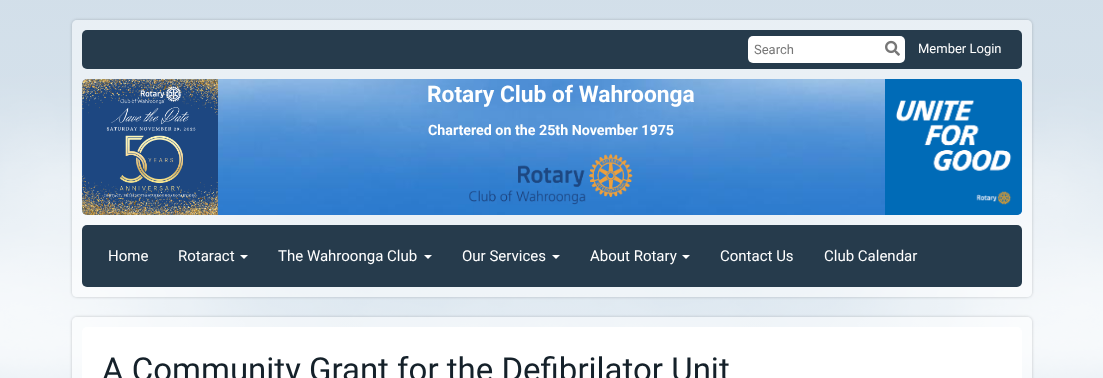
async function draw(canvas) {
  canvas.width = 1103
  canvas.height = 378
  const ctx = canvas.getContext('2d')
  ctx.miterLimit = 4
  ctx.fontKerning = 'normal'
  async function loadImage(src) {
    const img = new Image()
    img.src = src
    await img.decode()
    return img
  }

  ctx.fillStyle = '#fff'
  ctx.fillRect(0, 0, 1103, 378)
  ctx.drawImage(await loadImage('image0.png'), 0, 0, 1103, 378)
  ctx.save()
  ctx.beginPath()
  ctx.moveTo(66, 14)
  ctx.lineTo(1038, 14)
  ctx.lineTo(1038, 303)
  ctx.lineTo(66, 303)
  ctx.closePath()
  ctx.moveTo(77, 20)
  ctx.lineTo(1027, 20)
  ctx.bezierCurveTo(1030, 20, 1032, 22, 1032, 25)
  ctx.lineTo(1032, 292)
  ctx.bezierCurveTo(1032, 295, 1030, 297, 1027, 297)
  ctx.lineTo(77, 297)
  ctx.bezierCurveTo(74, 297, 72, 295, 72, 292)
  ctx.lineTo(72, 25)
  ctx.bezierCurveTo(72, 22, 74, 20, 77, 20)
  ctx.closePath()
  ctx.clip('evenodd')
  ctx.fillStyle = '#00000033'
  ctx.filter = 'blur(1.5px)'
  ctx.beginPath()
  ctx.roundRect(72, 20, 960, 277, 5)
  ctx.fill()
  ctx.filter = 'none'
  ctx.restore()
  ctx.fillStyle = '#ffffff80'
  ctx.beginPath()
  ctx.roundRect(72, 20, 960, 277, 5)
  ctx.fill()
  ctx.fillStyle = '#263b4c'
  ctx.beginPath()
  ctx.roundRect(82, 30, 940, 39, 5)
  ctx.fill()
  ctx.fillStyle = '#fff'
  ctx.beginPath()
  ctx.roundRect(748, 36, 157, 27, 5)
  ctx.fill()
  ctx.font = '13px Roboto'
  ctx.fillStyle = '#777'
  ctx.fillText('Search', 754, 54)
  ctx.drawImage(await loadImage('image1.png'), 885, 40, 15, 16)
  ctx.fillStyle = '#fff'
  ctx.fillText('Member Login', 918, 53)
  ctx.drawImage(await loadImage('image2.png'), 82, 79, 940, 136)
  ctx.drawImage(await loadImage('image3.png'), 82, 79, 136, 136)
  ctx.font = 'bold 22.75px Roboto'
  ctx.fillText('Rotary Club of Wahroonga', 427, 102)
  ctx.font = 'bold 14.25px Roboto'
  ctx.fillText('Chartered on the 25th November 1975', 428, 135)
  ctx.drawImage(await loadImage('image4.png'), 469, 153, 164, 52)
  ctx.drawImage(await loadImage('image5.png'), 885, 79, 137, 136)
  ctx.fillStyle = '#263b4c'
  ctx.beginPath()
  ctx.roundRect(82, 225, 940, 62, 5)
  ctx.fill()
  ctx.font = '15px Roboto'
  ctx.fillStyle = '#fff'
  ctx.fillText('Home', 108, 261)
  ctx.fillText('Rotaract', 178, 261)
  ctx.beginPath()
  ctx.moveTo(240, 255)
  ctx.lineTo(248, 255)
  ctx.lineTo(244, 259)
  ctx.closePath()
  ctx.fill()
  ctx.fillText('The Wahroonga Club', 278, 261)
  ctx.beginPath()
  ctx.moveTo(424, 255)
  ctx.lineTo(432, 255)
  ctx.lineTo(428, 259)
  ctx.closePath()
  ctx.fill()
  ctx.fillText('Our Services', 462, 261)
  ctx.beginPath()
  ctx.moveTo(552, 255)
  ctx.lineTo(560, 255)
  ctx.lineTo(556, 259)
  ctx.closePath()
  ctx.fill()
  ctx.fillText('About Rotary', 590, 261)
  ctx.beginPath()
  ctx.moveTo(682, 255)
  ctx.lineTo(690, 255)
  ctx.lineTo(686, 259)
  ctx.closePath()
  ctx.fill()
  ctx.fillText('Contact Us', 720, 261)
  ctx.fillText('Club Calendar', 824, 261)
  ctx.save()
  ctx.beginPath()
  ctx.moveTo(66, 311)
  ctx.lineTo(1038, 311)
  ctx.lineTo(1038, 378)
  ctx.lineTo(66, 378)
  ctx.closePath()
  ctx.moveTo(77, 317)
  ctx.lineTo(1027, 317)
  ctx.bezierCurveTo(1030, 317, 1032, 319, 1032, 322)
  ctx.lineTo(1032, 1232)
  ctx.bezierCurveTo(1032, 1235, 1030, 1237, 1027, 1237)
  ctx.lineTo(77, 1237)
  ctx.bezierCurveTo(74, 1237, 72, 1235, 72, 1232)
  ctx.lineTo(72, 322)
  ctx.bezierCurveTo(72, 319, 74, 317, 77, 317)
  ctx.closePath()
  ctx.clip('evenodd')
  ctx.fillStyle = '#00000033'
  ctx.filter = 'blur(1.5px)'
  ctx.beginPath()
  ctx.roundRect(72, 317, 960, 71, 5)
  ctx.fill()
  ctx.filter = 'none'
  ctx.restore()
  ctx.fillStyle = '#ffffff80'
  ctx.beginPath()
  ctx.roundRect(72, 317, 960, 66, 5)
  ctx.fill()
  ctx.fillStyle = '#fff'
  ctx.beginPath()
  ctx.roundRect(82, 327, 940, 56, 5)
  ctx.fill()
  ctx.font = '33px Roboto'
  ctx.fillStyle = '#15212a'
  ctx.fillText('A Community Grant for the Defibrilator Unit', 102, 381)
}

draw(document.querySelector('canvas'))
